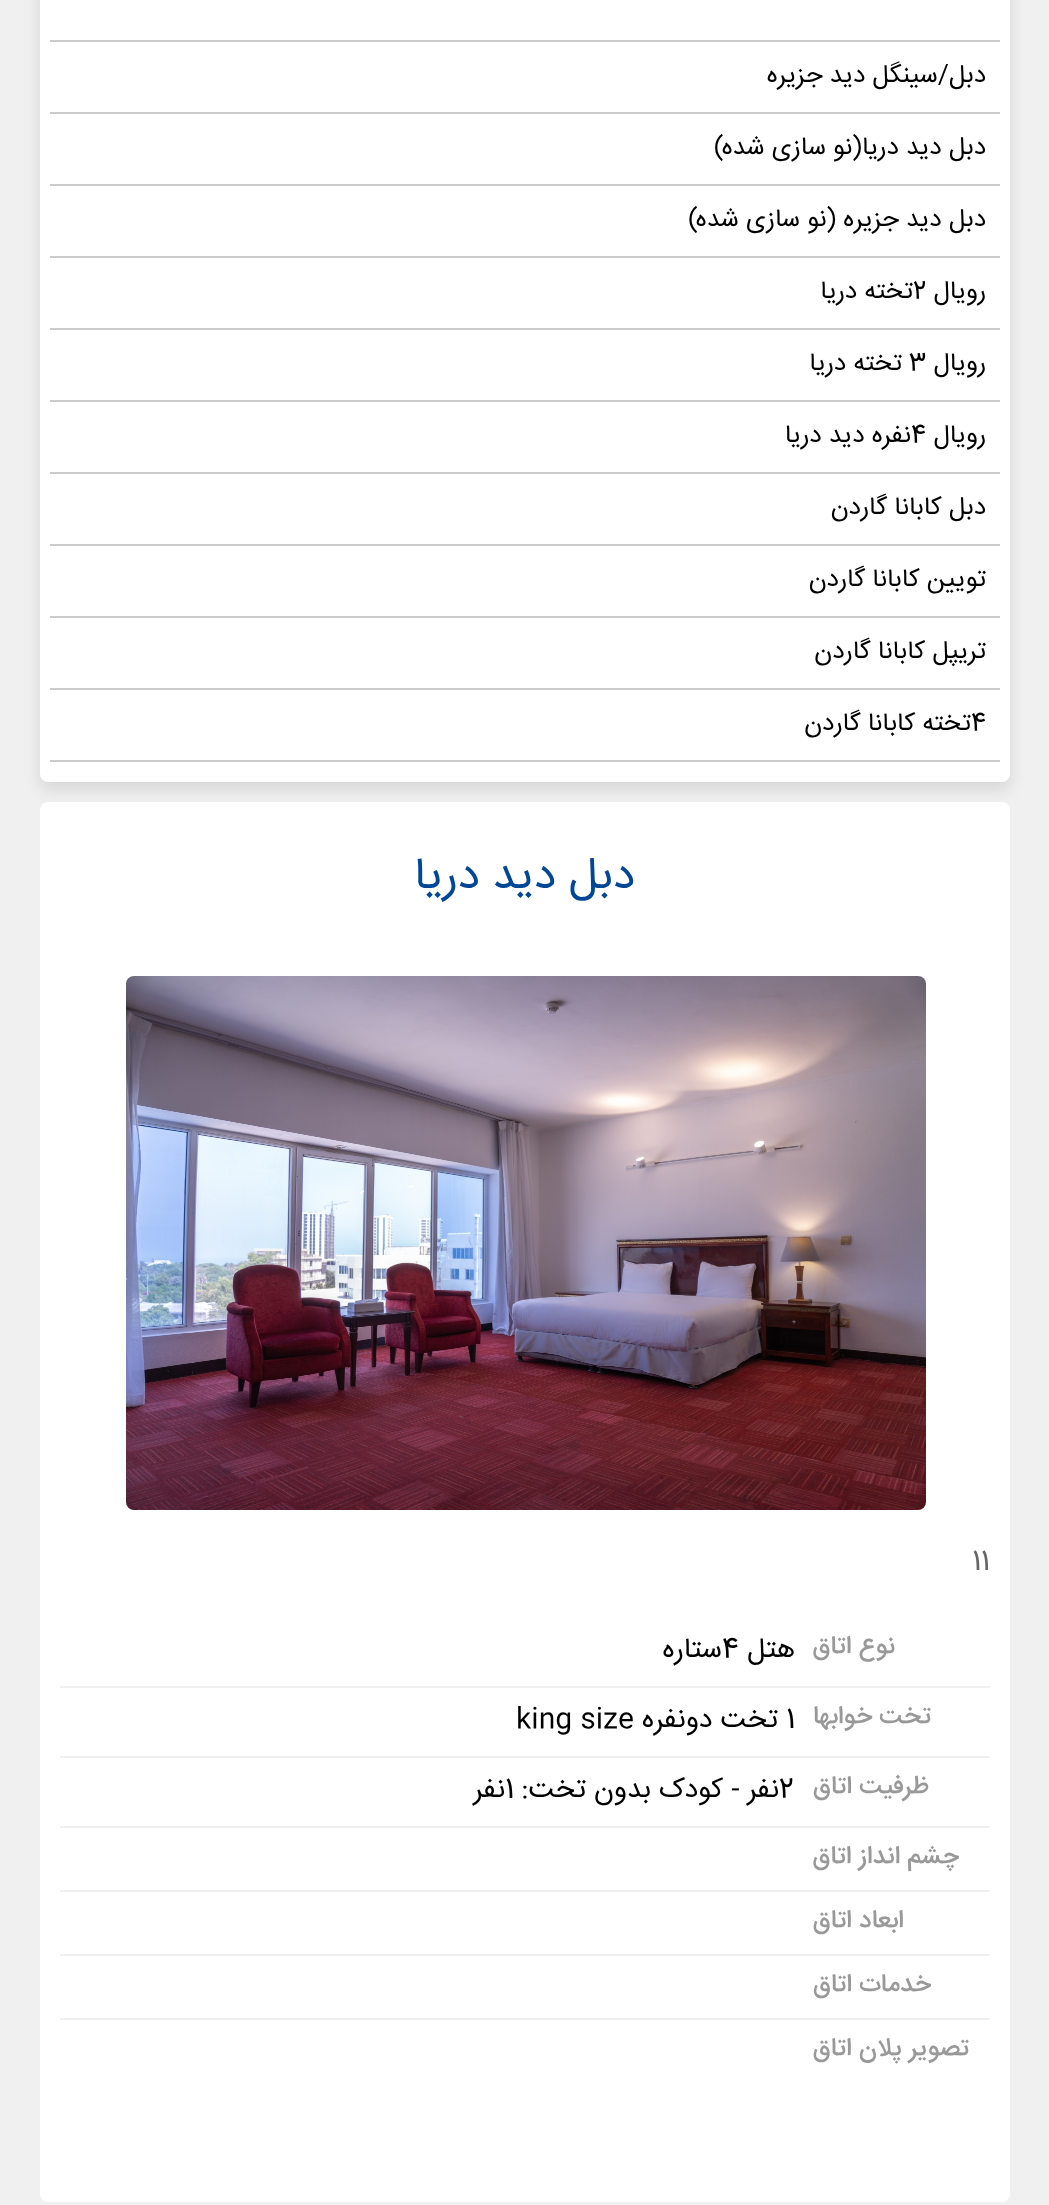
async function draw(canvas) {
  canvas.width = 1049
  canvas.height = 2205
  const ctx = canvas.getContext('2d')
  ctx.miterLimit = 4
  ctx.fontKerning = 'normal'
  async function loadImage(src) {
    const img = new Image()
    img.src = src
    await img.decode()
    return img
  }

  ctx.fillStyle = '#f0f0f0'
  ctx.fillRect(0, 0, 1049, 2205)
  ctx.fillStyle = '#0000001a'
  ctx.filter = 'blur(8px)'
  ctx.beginPath()
  ctx.roundRect(40, -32, 970, 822, 8)
  ctx.fill()
  ctx.filter = 'none'
  ctx.fillStyle = '#fff'
  ctx.beginPath()
  ctx.roundRect(40, -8, 970, 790, 8)
  ctx.fill()
  ctx.fillStyle = '#ccc'
  ctx.fillRect(50, 40, 950, 2)
  ctx.fillRect(50, 112, 950, 2)
  ctx.direction = 'rtl'
  ctx.font = '25.25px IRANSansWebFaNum'
  ctx.fillStyle = '#000'
  ctx.fillText('دبل/سینگل دید جزیره', 986, 82)
  ctx.fillStyle = '#ccc'
  ctx.fillRect(50, 184, 950, 2)
  ctx.fillStyle = '#000'
  ctx.fillText('دبل دید دریا(نو سازی شده)', 986, 154)
  ctx.fillStyle = '#ccc'
  ctx.fillRect(50, 256, 950, 2)
  ctx.fillStyle = '#000'
  ctx.fillText('دبل دید جزیره (نو سازی شده)', 986, 226)
  ctx.fillStyle = '#ccc'
  ctx.fillRect(50, 328, 950, 2)
  ctx.fillStyle = '#000'
  ctx.fillText('رویال', 986, 298)
  ctx.direction = 'ltr'
  ctx.fillText('2', 913, 298)
  ctx.direction = 'rtl'
  ctx.fillText('تخته دریا', 913, 298)
  ctx.fillStyle = '#ccc'
  ctx.fillRect(50, 400, 950, 2)
  ctx.fillStyle = '#000'
  ctx.fillText('رویال', 986, 370)
  ctx.direction = 'ltr'
  ctx.fillText('3', 909, 370)
  ctx.direction = 'rtl'
  ctx.fillText('تخته دریا', 902, 370)
  ctx.fillStyle = '#ccc'
  ctx.fillRect(50, 472, 950, 2)
  ctx.fillStyle = '#000'
  ctx.fillText('رویال', 986, 442)
  ctx.direction = 'ltr'
  ctx.fillText('4', 911, 442)
  ctx.direction = 'rtl'
  ctx.fillText('نفره دید دریا', 911, 442)
  ctx.fillStyle = '#ccc'
  ctx.fillRect(50, 544, 950, 2)
  ctx.fillStyle = '#000'
  ctx.fillText('دبل کابانا گاردن', 986, 514)
  ctx.fillStyle = '#ccc'
  ctx.fillRect(50, 616, 950, 2)
  ctx.fillStyle = '#000'
  ctx.fillText('تویین کابانا گاردن', 986, 586)
  ctx.fillStyle = '#ccc'
  ctx.fillRect(50, 688, 950, 2)
  ctx.fillStyle = '#000'
  ctx.fillText('تریپل کابانا گاردن', 986, 658)
  ctx.fillStyle = '#ccc'
  ctx.fillRect(50, 760, 950, 2)
  ctx.direction = 'ltr'
  ctx.fillStyle = '#000'
  ctx.fillText('4', 971, 730)
  ctx.direction = 'rtl'
  ctx.fillText('تخته کابانا گاردن', 971, 730)
  ctx.fillStyle = '#fff'
  ctx.beginPath()
  ctx.roundRect(40, 802, 970, 1400, 8)
  ctx.fill()
  ctx.font = '45px IRANSansWebFaNum'
  ctx.fillStyle = '#004696'
  ctx.fillText('دبل دید دریا', 635, 888)
  ctx.drawImage(await loadImage('image0.png'), 126, 976, 800, 534)
  ctx.direction = 'ltr'
  ctx.font = '28px IRANSansWebFaNum'
  ctx.fillStyle = '#666'
  ctx.fillText('11', 972, 1569)
  ctx.direction = 'rtl'
  ctx.font = '500 25.25px IRANSansWebFaNum'
  ctx.fillStyle = '#999'
  ctx.fillText('نوع اتاق', 895, 1653)
  ctx.font = '28px IRANSansWebFaNum'
  ctx.fillStyle = '#000'
  ctx.fillText('هتل', 795, 1657)
  ctx.direction = 'ltr'
  ctx.fillText('4', 722, 1657)
  ctx.direction = 'rtl'
  ctx.fillText('ستاره', 722, 1657)
  ctx.fillStyle = '#f0f0f0'
  ctx.fillRect(60, 1686, 930, 2)
  ctx.font = '500 25.25px IRANSansWebFaNum'
  ctx.fillStyle = '#999'
  ctx.fillText('تخت خوابها', 931, 1723)
  ctx.direction = 'ltr'
  ctx.font = '28px IRANSansWebFaNum'
  ctx.fillStyle = '#000'
  ctx.fillText('1', 786, 1727)
  ctx.direction = 'rtl'
  ctx.fillText('تخت دونفره', 778, 1727)
  ctx.direction = 'ltr'
  ctx.fillText('king size', 516, 1727)
  ctx.fillStyle = '#f0f0f0'
  ctx.fillRect(60, 1756, 930, 2)
  ctx.direction = 'rtl'
  ctx.font = '500 25.25px IRANSansWebFaNum'
  ctx.fillStyle = '#999'
  ctx.fillText('ظرفیت اتاق', 929, 1793)
  ctx.direction = 'ltr'
  ctx.font = '28px IRANSansWebFaNum'
  ctx.fillStyle = '#000'
  ctx.fillText('2', 779, 1797)
  ctx.direction = 'rtl'
  ctx.fillText('نفر - کودک بدون تخت:', 779, 1797)
  ctx.direction = 'ltr'
  ctx.fillText('1', 505, 1797)
  ctx.direction = 'rtl'
  ctx.fillText('نفر', 505, 1797)
  ctx.fillStyle = '#f0f0f0'
  ctx.fillRect(60, 1826, 930, 2)
  ctx.font = '500 25.25px IRANSansWebFaNum'
  ctx.fillStyle = '#999'
  ctx.fillText('چشم انداز اتاق', 959, 1863)
  ctx.fillStyle = '#f0f0f0'
  ctx.fillRect(60, 1890, 930, 2)
  ctx.fillStyle = '#999'
  ctx.fillText('ابعاد اتاق', 904, 1927)
  ctx.fillStyle = '#f0f0f0'
  ctx.fillRect(60, 1954, 930, 2)
  ctx.fillStyle = '#999'
  ctx.fillText('خدمات اتاق', 931, 1991)
  ctx.fillStyle = '#f0f0f0'
  ctx.fillRect(60, 2018, 930, 2)
  ctx.fillStyle = '#999'
  ctx.fillText('تصویر پلان اتاق', 969, 2055)
}

draw(document.querySelector('canvas'))
